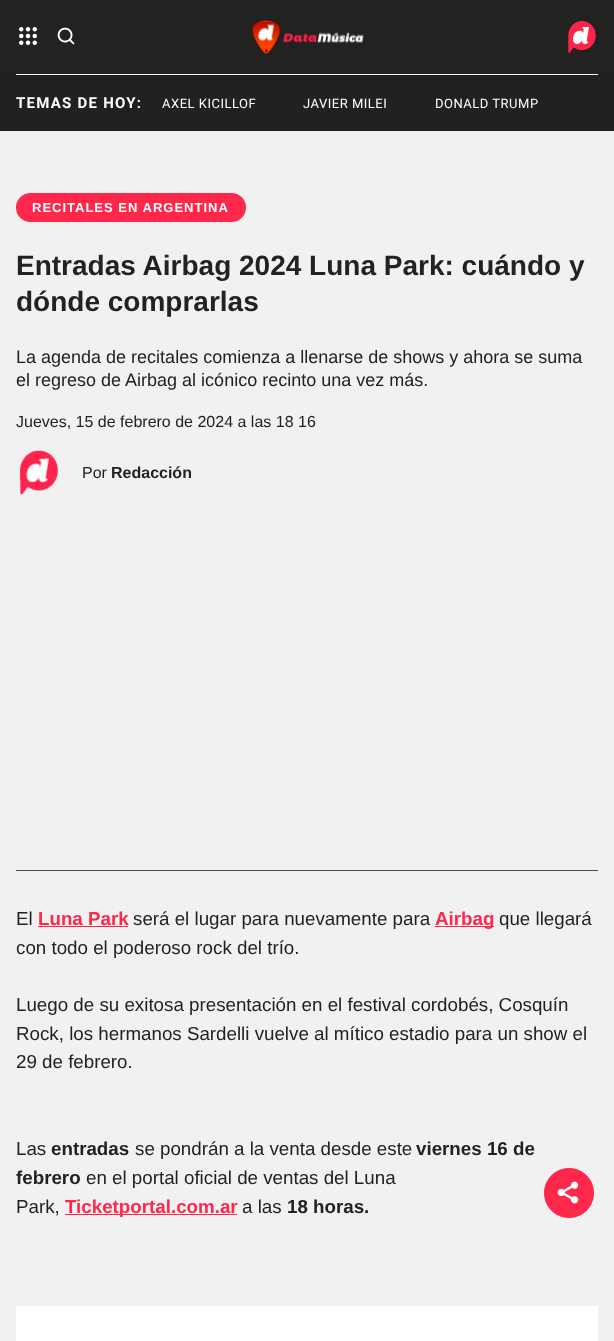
async function draw(canvas) {
  canvas.width = 614
  canvas.height = 1341
  const ctx = canvas.getContext('2d')
  ctx.miterLimit = 4
  ctx.fontKerning = 'normal'
  async function loadImage(src) {
    const img = new Image()
    img.src = src
    await img.decode()
    return img
  }

  ctx.fillStyle = '#f1f1f1'
  ctx.fillRect(0, 0, 614, 1341)
  ctx.fillStyle = '#222221'
  ctx.fillRect(0, 0, 614, 74)
  ctx.drawImage(await loadImage('image0.png'), 19, 27, 18, 18)
  ctx.drawImage(await loadImage('image1.png'), 57, 27, 18, 18)
  ctx.drawImage(await loadImage('image2.png'), 251, 19, 113, 36)
  ctx.drawImage(await loadImage('image3.png'), 568, 21, 28, 32)
  ctx.fillStyle = '#212121'
  ctx.fillRect(0, 74, 614, 57)
  ctx.fillStyle = '#fff'
  ctx.fillRect(16, 74, 582, 1)
  ctx.letterSpacing = '1.25px'
  ctx.font = 'bold 15px Roboto'
  ctx.fillText('TEMAS DE HOY:', 16, 108)
  ctx.letterSpacing = '0.5px'
  ctx.font = '13px Roboto'
  ctx.fillText('AXEL KICILLOF', 162, 108)
  ctx.fillText('JAVIER MILEI', 303, 108)
  ctx.fillText('DONALD TRUMP', 435, 108)
  ctx.fillStyle = '#ff274a'
  ctx.beginPath()
  ctx.roundRect(16, 193, 230, 29, 14.5)
  ctx.fill()
  ctx.letterSpacing = '1px'
  ctx.font = 'bold 13px Liberation Sans'
  ctx.fillStyle = '#fff'
  ctx.fillText('RECITALES EN ARGENTINA', 32, 212)
  ctx.letterSpacing = '0px'
  ctx.font = 'bold 28px Liberation Sans'
  ctx.fillStyle = '#222221'
  ctx.fillText('Entradas Airbag 2024 Luna Park: cuándo y', 16, 275)
  ctx.fillText('dónde comprarlas', 16, 311)
  ctx.font = '18px Liberation Sans'
  ctx.fillText('La agenda de recitales comienza a llenarse de shows y ahora se suma', 16, 363)
  ctx.fillText('el regreso de Airbag al icónico recinto una vez más.', 16, 386)
  ctx.font = '16px Liberation Sans'
  ctx.fillText('Jueves, 15 de febrero de 2024 a las 18 16', 16, 427)
  ctx.drawImage(await loadImage('image4.png'), 20, 450, 38, 45)
  ctx.fillText('Por', 82, 478)
  ctx.font = 'bold 16px Liberation Sans'
  ctx.fillText('Redacción', 111, 478)
  ctx.fillStyle = '#48494d'
  ctx.fillRect(16, 870, 582, 1)
  ctx.drawImage(await loadImage('image5.png'), 544, 1168, 50, 50)
  ctx.font = '18.75px Liberation Sans'
  ctx.fillStyle = '#222221'
  ctx.fillText('El', 16, 925)
  ctx.font = 'bold 18.75px Liberation Sans'
  ctx.fillStyle = '#ff274a'
  ctx.fillText('Luna Park', 38, 925)
  ctx.fillRect(38, 926, 90, 1)
  ctx.font = '18.75px Liberation Sans'
  ctx.fillStyle = '#222221'
  ctx.fillText('será el lugar para nuevamente para', 133, 925)
  ctx.fillStyle = '#ff274a'
  ctx.fillRect(435, 926, 59, 1)
  ctx.font = 'bold 18.75px Liberation Sans'
  ctx.fillText('Airbag', 435, 925)
  ctx.font = '18.75px Liberation Sans'
  ctx.fillStyle = '#222221'
  ctx.fillText('que llegará', 499, 925)
  ctx.fillText('con todo el poderoso rock del trío.', 16, 954)
  ctx.fillText('Luego de su exitosa presentación en el festival cordobés, Cosquín', 16, 1011)
  ctx.fillText('Rock, los hermanos Sardelli vuelve al mítico estadio para un show el', 16, 1040)
  ctx.fillText('29 de febrero.', 16, 1068)
  ctx.fillText('Las', 16, 1155)
  ctx.font = 'bold 18.75px Liberation Sans'
  ctx.fillText('entradas', 51, 1155)
  ctx.font = '18.75px Liberation Sans'
  ctx.fillText('se pondrán a la venta desde este', 135, 1155)
  ctx.font = 'bold 18.75px Liberation Sans'
  ctx.fillText('viernes 16 de', 416, 1155)
  ctx.fillText('febrero', 16, 1184)
  ctx.font = '18.75px Liberation Sans'
  ctx.fillText('en el portal oficial de ventas del Luna', 86, 1184)
  ctx.fillText('Park,', 16, 1213)
  ctx.fillStyle = '#ff274a'
  ctx.fillRect(65, 1214, 172, 1)
  ctx.font = 'bold 18.75px Liberation Sans'
  ctx.fillText('Ticketportal.com.ar', 65, 1213)
  ctx.font = '18.75px Liberation Sans'
  ctx.fillStyle = '#222221'
  ctx.fillText('a las', 242, 1213)
  ctx.font = 'bold 18.75px Liberation Sans'
  ctx.fillText('18 horas.', 287, 1213)
  ctx.fillStyle = '#fff'
  ctx.fillRect(16, 1306, 582, 35)
}

draw(document.querySelector('canvas'))
